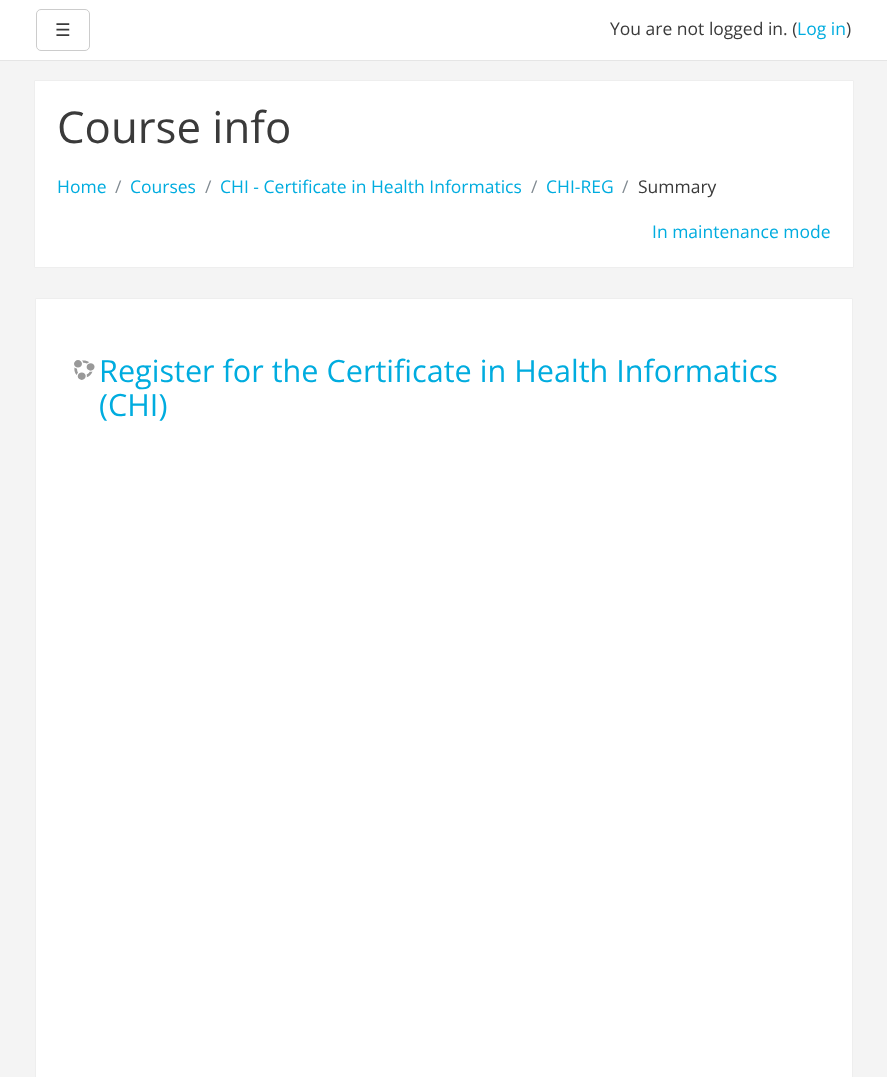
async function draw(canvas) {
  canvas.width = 887
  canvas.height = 1077
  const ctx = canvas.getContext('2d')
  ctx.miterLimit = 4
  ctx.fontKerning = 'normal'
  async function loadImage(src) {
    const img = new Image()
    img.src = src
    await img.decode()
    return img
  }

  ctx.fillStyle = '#f4f4f4'
  ctx.fillRect(0, 0, 887, 1077)
  ctx.fillStyle = '#fff'
  ctx.fillRect(0, 0, 887, 60)
  ctx.fillStyle = '#e5e5e5'
  ctx.fillRect(0, 60, 887, 1)
  ctx.beginPath()
  ctx.roundRect(36.5, 9.5, 53, 41, 4.5)
  ctx.strokeStyle = '#ccc'
  ctx.stroke()
  ctx.font = '17.5px DejaVu Sans'
  ctx.fillStyle = '#3a3a3a'
  ctx.fillText('☰', 55, 36)
  ctx.font = '17.5px Open Sans'
  ctx.fillText('You are not logged in. (', 610, 35)
  ctx.fillStyle = '#00acdf'
  ctx.fillText('Log in', 797, 35)
  ctx.fillStyle = '#3a3a3a'
  ctx.fillText(')', 846, 35)
  ctx.fillStyle = '#fff'
  ctx.beginPath()
  ctx.rect(34.5, 80.5, 819, 187)
  ctx.fill()
  ctx.strokeStyle = '#eee'
  ctx.stroke()
  ctx.font = '43.75px Open Sans'
  ctx.fillStyle = '#3a3a3a'
  ctx.fillText('Course info', 57, 143)
  ctx.font = '17.5px Open Sans'
  ctx.fillStyle = '#00acdf'
  ctx.fillText('Home', 57, 193)
  ctx.fillStyle = '#818a91'
  ctx.fillText('/', 115, 193)
  ctx.fillStyle = '#00acdf'
  ctx.fillText('Courses', 130, 193)
  ctx.fillStyle = '#818a91'
  ctx.fillText('/', 205, 193)
  ctx.fillStyle = '#00acdf'
  ctx.fillText('CHI - Certificate in Health Informatics', 220, 193)
  ctx.fillStyle = '#818a91'
  ctx.fillText('/', 531, 193)
  ctx.fillStyle = '#00acdf'
  ctx.fillText('CHI-REG', 546, 193)
  ctx.fillStyle = '#818a91'
  ctx.fillText('/', 622, 193)
  ctx.fillStyle = '#3a3a3a'
  ctx.fillText('Summary', 638, 193)
  ctx.fillStyle = '#00acdf'
  ctx.fillText('In maintenance mode', 652, 238)
  ctx.fillStyle = '#fff'
  ctx.beginPath()
  ctx.rect(35.5, 298.5, 817, 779)
  ctx.fill()
  ctx.stroke()
  ctx.drawImage(await loadImage('image0.png'), 74, 360, 21, 20)
  ctx.font = '30.6px Open Sans'
  ctx.fillStyle = '#00acdf'
  ctx.fillText('Register for the Certificate in Health Informatics', 99, 382)
  ctx.fillText('(CHI)', 99, 416)
}

draw(document.querySelector('canvas'))
